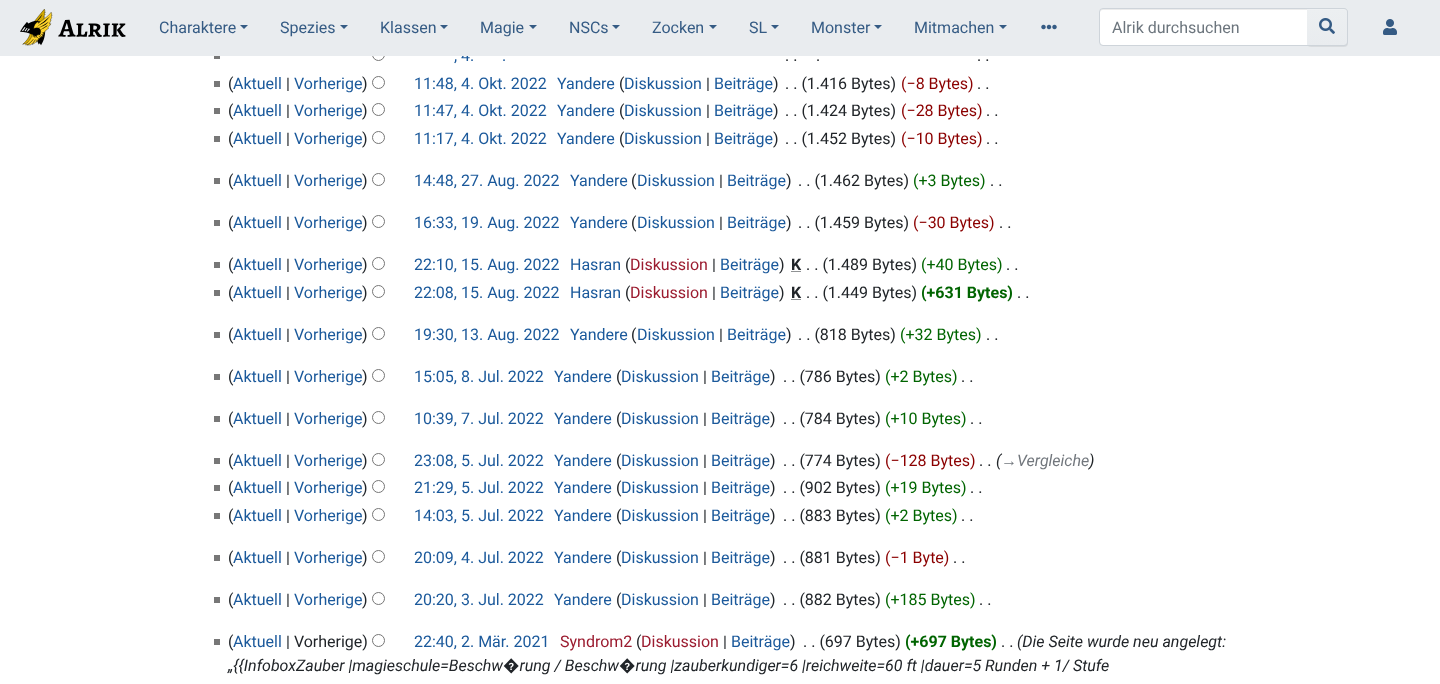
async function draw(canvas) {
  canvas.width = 1440
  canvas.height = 684
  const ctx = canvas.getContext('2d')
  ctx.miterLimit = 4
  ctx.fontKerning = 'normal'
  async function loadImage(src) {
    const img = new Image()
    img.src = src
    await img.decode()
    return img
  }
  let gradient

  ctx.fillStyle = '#fff'
  ctx.fillRect(0, 0, 1440, 684)
  ctx.beginPath()
  ctx.arc(378.5, 54.5, 6, 0, 2 * Math.PI)
  ctx.strokeStyle = '#767676'
  ctx.stroke()
  ctx.font = '16px Roboto'
  ctx.fillStyle = '#1b599b'
  ctx.fillText(', 4.', 454, 61)
  ctx.fillStyle = '#e9ecef'
  ctx.fillRect(0, 0, 1440, 56)
  ctx.drawImage(await loadImage('image0.png'), 20, 9, 33, 37)
  ctx.drawImage(await loadImage('image1.png'), 58, 19, 68, 18)
  ctx.fillStyle = '#355b84'
  ctx.fillText('Charaktere', 159, 33)
  ctx.beginPath()
  ctx.moveTo(240, 25)
  ctx.lineTo(248, 25)
  ctx.lineTo(244, 29)
  ctx.closePath()
  ctx.fill()
  ctx.fillText('Spezies', 280, 33)
  ctx.beginPath()
  ctx.moveTo(340, 25)
  ctx.lineTo(348, 25)
  ctx.lineTo(344, 29)
  ctx.closePath()
  ctx.fill()
  ctx.fillText('Klassen', 380, 33)
  ctx.beginPath()
  ctx.moveTo(440, 25)
  ctx.lineTo(448, 25)
  ctx.lineTo(444, 29)
  ctx.closePath()
  ctx.fill()
  ctx.fillText('Magie', 480, 33)
  ctx.beginPath()
  ctx.moveTo(529, 25)
  ctx.lineTo(537, 25)
  ctx.lineTo(533, 29)
  ctx.closePath()
  ctx.fill()
  ctx.fillText('NSCs', 569, 33)
  ctx.beginPath()
  ctx.moveTo(612, 25)
  ctx.lineTo(620, 25)
  ctx.lineTo(616, 29)
  ctx.closePath()
  ctx.fill()
  ctx.fillText('Zocken', 652, 33)
  ctx.beginPath()
  ctx.moveTo(709, 25)
  ctx.lineTo(717, 25)
  ctx.lineTo(713, 29)
  ctx.closePath()
  ctx.fill()
  ctx.fillText('SL', 749, 33)
  ctx.beginPath()
  ctx.moveTo(771, 25)
  ctx.lineTo(779, 25)
  ctx.lineTo(775, 29)
  ctx.closePath()
  ctx.fill()
  ctx.fillText('Monster', 811, 33)
  ctx.beginPath()
  ctx.moveTo(874, 25)
  ctx.lineTo(882, 25)
  ctx.lineTo(878, 29)
  ctx.closePath()
  ctx.fill()
  ctx.fillText('Mitmachen', 914, 33)
  ctx.beginPath()
  ctx.moveTo(999, 25)
  ctx.lineTo(1007, 25)
  ctx.lineTo(1003, 29)
  ctx.closePath()
  ctx.fill()
  ctx.drawImage(await loadImage('image2.png'), 1041, 24, 16, 6)
  ctx.fillStyle = '#fff'
  ctx.beginPath()
  ctx.roundRect(1100, 9, 207, 36, [3, 0, 0, 3])
  ctx.fill()
  ctx.fillStyle = '#ececec'
  ctx.beginPath()
  ctx.moveTo(1103, 10)
  ctx.lineTo(1307, 10)
  ctx.lineTo(1307, 9)
  ctx.lineTo(1103, 9)
  ctx.bezierCurveTo(1101, 9, 1100, 11, 1100, 13)
  ctx.bezierCurveTo(1100, 11, 1101, 10, 1103, 10)
  ctx.closePath()
  ctx.fill()
  ctx.beginPath()
  ctx.roundRect(1099.5, 8.5, 208, 37, [3.5, 0, 0, 3.5])
  ctx.strokeStyle = '#ced4da'
  ctx.stroke()
  ctx.fillStyle = '#6c757d'
  ctx.fillText('Alrik durchsuchen', 1112, 33)
  ctx.fillStyle = '#00000012'
  ctx.filter = 'blur(0.5px)'
  ctx.beginPath()
  ctx.roundRect(1307, 9, 41, 38, 4)
  ctx.fill()
  ctx.filter = 'none'
  gradient = ctx.createLinearGradient(1327, 9, 1327, 45)
  gradient.addColorStop(0, '#eceff1')
  gradient.addColorStop(1, '#e9ecef')
  ctx.fillStyle = gradient
  ctx.beginPath()
  ctx.roundRect(1307, 9, 40, 36, [0, 3, 3, 0])
  ctx.fill()
  ctx.fillStyle = '#eff1f3'
  ctx.beginPath()
  ctx.moveTo(1307, 10)
  ctx.lineTo(1344, 10)
  ctx.bezierCurveTo(1346, 10, 1347, 11, 1347, 13)
  ctx.lineTo(1347, 12)
  ctx.bezierCurveTo(1347, 10, 1346, 9, 1344, 9)
  ctx.lineTo(1307, 9)
  ctx.closePath()
  ctx.fill()
  ctx.fillStyle = '#ced4da'
  ctx.beginPath()
  ctx.moveTo(1307, 8)
  ctx.lineTo(1344, 8)
  ctx.bezierCurveTo(1346, 8, 1348, 10, 1348, 12)
  ctx.lineTo(1348, 42)
  ctx.bezierCurveTo(1348, 44, 1346, 46, 1344, 46)
  ctx.lineTo(1307, 46)
  ctx.closePath()
  ctx.moveTo(1307, 9)
  ctx.lineTo(1344, 9)
  ctx.bezierCurveTo(1346, 9, 1347, 10, 1347, 12)
  ctx.lineTo(1347, 42)
  ctx.bezierCurveTo(1347, 44, 1346, 45, 1344, 45)
  ctx.lineTo(1307, 45)
  ctx.closePath()
  ctx.fill('evenodd')
  ctx.drawImage(await loadImage('image3.png'), 1319, 18, 16, 16)
  ctx.drawImage(await loadImage('image4.png'), 1383, 19, 14, 16)
  ctx.fillStyle = '#777'
  ctx.fillRect(214, 56, 6, 3)
  ctx.fillStyle = '#1b599b'
  ctx.fillText('.', 502, 61)
  ctx.fillStyle = '#212529'
  ctx.fillText('. .', 785, 61)
  ctx.fillText('.', 816, 61)
  ctx.fillText('. .', 977, 61)
  ctx.fillStyle = '#777'
  ctx.fillRect(214, 81, 6, 6)
  ctx.fillStyle = '#212529'
  ctx.fillText('(', 228, 89)
  ctx.fillStyle = '#1b599b'
  ctx.fillText('Aktuell', 233, 89)
  ctx.fillStyle = '#212529'
  ctx.fillText('|', 286, 89)
  ctx.fillStyle = '#1b599b'
  ctx.fillText('Vorherige', 294, 89)
  ctx.fillStyle = '#212529'
  ctx.fillText(')', 362, 89)
  ctx.beginPath()
  ctx.arc(378.5, 82.5, 6, 0, 2 * Math.PI)
  ctx.strokeStyle = '#767676'
  ctx.stroke()
  ctx.fillStyle = '#1b599b'
  ctx.fillText('11:48, 4. Okt. 2022', 414, 89)
  ctx.fillText('Yandere', 557, 89)
  ctx.fillStyle = '#212529'
  ctx.fillText('(', 619, 89)
  ctx.fillStyle = '#1b599b'
  ctx.fillText('Diskussion', 624, 89)
  ctx.fillStyle = '#212529'
  ctx.fillText('|', 706, 89)
  ctx.fillStyle = '#1b599b'
  ctx.fillText('Beiträge', 714, 89)
  ctx.fillStyle = '#212529'
  ctx.fillText(')', 773, 89)
  ctx.fillText('. . (1.416 Bytes)', 785, 89)
  ctx.fillStyle = '#8b0000'
  ctx.fillText('(−8 Bytes)', 901, 89)
  ctx.fillStyle = '#212529'
  ctx.fillText('. .', 977, 89)
  ctx.fillStyle = '#777'
  ctx.fillRect(214, 108, 6, 6)
  ctx.fillStyle = '#212529'
  ctx.fillText('(', 228, 116)
  ctx.fillStyle = '#1b599b'
  ctx.fillText('Aktuell', 233, 116)
  ctx.fillStyle = '#212529'
  ctx.fillText('|', 286, 116)
  ctx.fillStyle = '#1b599b'
  ctx.fillText('Vorherige', 294, 116)
  ctx.fillStyle = '#212529'
  ctx.fillText(')', 362, 116)
  ctx.beginPath()
  ctx.arc(378.5, 109.5, 6, 0, 2 * Math.PI)
  ctx.stroke()
  ctx.fillStyle = '#1b599b'
  ctx.fillText('11:47, 4. Okt. 2022', 414, 116)
  ctx.fillText('Yandere', 557, 116)
  ctx.fillStyle = '#212529'
  ctx.fillText('(', 619, 116)
  ctx.fillStyle = '#1b599b'
  ctx.fillText('Diskussion', 624, 116)
  ctx.fillStyle = '#212529'
  ctx.fillText('|', 706, 116)
  ctx.fillStyle = '#1b599b'
  ctx.fillText('Beiträge', 714, 116)
  ctx.fillStyle = '#212529'
  ctx.fillText(')', 773, 116)
  ctx.fillText('. . (1.424 Bytes)', 785, 116)
  ctx.fillStyle = '#8b0000'
  ctx.fillText('(−28 Bytes)', 901, 116)
  ctx.fillStyle = '#212529'
  ctx.fillText('. .', 986, 116)
  ctx.fillStyle = '#777'
  ctx.fillRect(214, 136, 6, 6)
  ctx.fillStyle = '#212529'
  ctx.fillText('(', 228, 144)
  ctx.fillStyle = '#1b599b'
  ctx.fillText('Aktuell', 233, 144)
  ctx.fillStyle = '#212529'
  ctx.fillText('|', 286, 144)
  ctx.fillStyle = '#1b599b'
  ctx.fillText('Vorherige', 294, 144)
  ctx.fillStyle = '#212529'
  ctx.fillText(')', 362, 144)
  ctx.beginPath()
  ctx.arc(378.5, 137.5, 6, 0, 2 * Math.PI)
  ctx.stroke()
  ctx.fillStyle = '#1b599b'
  ctx.fillText('11:17, 4. Okt. 2022', 414, 144)
  ctx.fillText('Yandere', 557, 144)
  ctx.fillStyle = '#212529'
  ctx.fillText('(', 619, 144)
  ctx.fillStyle = '#1b599b'
  ctx.fillText('Diskussion', 624, 144)
  ctx.fillStyle = '#212529'
  ctx.fillText('|', 706, 144)
  ctx.fillStyle = '#1b599b'
  ctx.fillText('Beiträge', 714, 144)
  ctx.fillStyle = '#212529'
  ctx.fillText(')', 773, 144)
  ctx.fillText('. . (1.452 Bytes)', 785, 144)
  ctx.fillStyle = '#8b0000'
  ctx.fillText('(−10 Bytes)', 901, 144)
  ctx.fillStyle = '#212529'
  ctx.fillText('. .', 986, 144)
  ctx.fillStyle = '#777'
  ctx.fillRect(214, 178, 6, 6)
  ctx.fillStyle = '#212529'
  ctx.fillText('(', 228, 186)
  ctx.fillStyle = '#1b599b'
  ctx.fillText('Aktuell', 233, 186)
  ctx.fillStyle = '#212529'
  ctx.fillText('|', 286, 186)
  ctx.fillStyle = '#1b599b'
  ctx.fillText('Vorherige', 294, 186)
  ctx.fillStyle = '#212529'
  ctx.fillText(')', 362, 186)
  ctx.beginPath()
  ctx.arc(378.5, 179.5, 6, 0, 2 * Math.PI)
  ctx.stroke()
  ctx.fillStyle = '#1b599b'
  ctx.fillText('14:48, 27. Aug. 2022', 414, 186)
  ctx.fillText('Yandere', 570, 186)
  ctx.fillStyle = '#212529'
  ctx.fillText('(', 631, 186)
  ctx.fillStyle = '#1b599b'
  ctx.fillText('Diskussion', 637, 186)
  ctx.fillStyle = '#212529'
  ctx.fillText('|', 719, 186)
  ctx.fillStyle = '#1b599b'
  ctx.fillText('Beiträge', 727, 186)
  ctx.fillStyle = '#212529'
  ctx.fillText(')', 786, 186)
  ctx.fillText('. . (1.462 Bytes)', 798, 186)
  ctx.fillStyle = '#006400'
  ctx.fillText('(+3 Bytes)', 913, 186)
  ctx.fillStyle = '#212529'
  ctx.fillText('. .', 990, 186)
  ctx.fillStyle = '#777'
  ctx.fillRect(214, 220, 6, 6)
  ctx.fillStyle = '#212529'
  ctx.fillText('(', 228, 228)
  ctx.fillStyle = '#1b599b'
  ctx.fillText('Aktuell', 233, 228)
  ctx.fillStyle = '#212529'
  ctx.fillText('|', 286, 228)
  ctx.fillStyle = '#1b599b'
  ctx.fillText('Vorherige', 294, 228)
  ctx.fillStyle = '#212529'
  ctx.fillText(')', 362, 228)
  ctx.beginPath()
  ctx.arc(378.5, 221.5, 6, 0, 2 * Math.PI)
  ctx.stroke()
  ctx.fillStyle = '#1b599b'
  ctx.fillText('16:33, 19. Aug. 2022', 414, 228)
  ctx.fillText('Yandere', 570, 228)
  ctx.fillStyle = '#212529'
  ctx.fillText('(', 631, 228)
  ctx.fillStyle = '#1b599b'
  ctx.fillText('Diskussion', 637, 228)
  ctx.fillStyle = '#212529'
  ctx.fillText('|', 719, 228)
  ctx.fillStyle = '#1b599b'
  ctx.fillText('Beiträge', 727, 228)
  ctx.fillStyle = '#212529'
  ctx.fillText(')', 786, 228)
  ctx.fillText('. . (1.459 Bytes)', 798, 228)
  ctx.fillStyle = '#8b0000'
  ctx.fillText('(−30 Bytes)', 913, 228)
  ctx.fillStyle = '#212529'
  ctx.fillText('. .', 999, 228)
  ctx.fillStyle = '#777'
  ctx.fillRect(214, 262, 6, 6)
  ctx.fillStyle = '#212529'
  ctx.fillText('(', 228, 270)
  ctx.fillStyle = '#1b599b'
  ctx.fillText('Aktuell', 233, 270)
  ctx.fillStyle = '#212529'
  ctx.fillText('|', 286, 270)
  ctx.fillStyle = '#1b599b'
  ctx.fillText('Vorherige', 294, 270)
  ctx.fillStyle = '#212529'
  ctx.fillText(')', 362, 270)
  ctx.beginPath()
  ctx.arc(378.5, 263.5, 6, 0, 2 * Math.PI)
  ctx.stroke()
  ctx.fillStyle = '#1b599b'
  ctx.fillText('22:10, 15. Aug. 2022', 414, 270)
  ctx.fillText('Hasran', 570, 270)
  ctx.fillStyle = '#212529'
  ctx.fillText('(', 625, 270)
  ctx.fillStyle = '#9b1b2f'
  ctx.fillText('Diskussion', 630, 270)
  ctx.fillStyle = '#212529'
  ctx.fillText('|', 712, 270)
  ctx.fillStyle = '#1b599b'
  ctx.fillText('Beiträge', 720, 270)
  ctx.fillStyle = '#212529'
  ctx.fillText(')', 779, 270)
  ctx.font = 'bold 16px Roboto'
  ctx.fillText('K', 791, 270)
  ctx.beginPath()
  ctx.moveTo(791.5, 271.5)
  ctx.lineTo(801.5, 271.5)
  ctx.strokeStyle = '#212529'
  ctx.setLineDash([1, 1])
  ctx.stroke()
  ctx.font = '16px Roboto'
  ctx.fillText('. . (1.489 Bytes)', 806, 270)
  ctx.fillStyle = '#006400'
  ctx.fillText('(+40 Bytes)', 921, 270)
  ctx.fillStyle = '#212529'
  ctx.fillText('. .', 1006, 270)
  ctx.fillStyle = '#777'
  ctx.fillRect(214, 290, 6, 6)
  ctx.fillStyle = '#212529'
  ctx.fillText('(', 228, 298)
  ctx.fillStyle = '#1b599b'
  ctx.fillText('Aktuell', 233, 298)
  ctx.fillStyle = '#212529'
  ctx.fillText('|', 286, 298)
  ctx.fillStyle = '#1b599b'
  ctx.fillText('Vorherige', 294, 298)
  ctx.fillStyle = '#212529'
  ctx.fillText(')', 362, 298)
  ctx.beginPath()
  ctx.arc(378.5, 291.5, 6, 0, 2 * Math.PI)
  ctx.strokeStyle = '#767676'
  ctx.setLineDash([])
  ctx.stroke()
  ctx.fillStyle = '#1b599b'
  ctx.fillText('22:08, 15. Aug. 2022', 414, 298)
  ctx.fillText('Hasran', 570, 298)
  ctx.fillStyle = '#212529'
  ctx.fillText('(', 625, 298)
  ctx.fillStyle = '#9b1b2f'
  ctx.fillText('Diskussion', 630, 298)
  ctx.fillStyle = '#212529'
  ctx.fillText('|', 712, 298)
  ctx.fillStyle = '#1b599b'
  ctx.fillText('Beiträge', 720, 298)
  ctx.fillStyle = '#212529'
  ctx.fillText(')', 779, 298)
  ctx.font = 'bold 16px Roboto'
  ctx.fillText('K', 791, 298)
  ctx.beginPath()
  ctx.moveTo(791.5, 299.5)
  ctx.lineTo(801.5, 299.5)
  ctx.strokeStyle = '#212529'
  ctx.setLineDash([1, 1])
  ctx.stroke()
  ctx.font = '16px Roboto'
  ctx.fillText('. . (1.449 Bytes)', 806, 298)
  ctx.font = 'bold 16px Roboto'
  ctx.fillStyle = '#006400'
  ctx.fillText('(+631 Bytes)', 921, 298)
  ctx.font = '16px Roboto'
  ctx.fillStyle = '#212529'
  ctx.fillText('. .', 1017, 298)
  ctx.fillStyle = '#777'
  ctx.fillRect(214, 332, 6, 6)
  ctx.fillStyle = '#212529'
  ctx.fillText('(', 228, 340)
  ctx.fillStyle = '#1b599b'
  ctx.fillText('Aktuell', 233, 340)
  ctx.fillStyle = '#212529'
  ctx.fillText('|', 286, 340)
  ctx.fillStyle = '#1b599b'
  ctx.fillText('Vorherige', 294, 340)
  ctx.fillStyle = '#212529'
  ctx.fillText(')', 362, 340)
  ctx.beginPath()
  ctx.arc(378.5, 333.5, 6, 0, 2 * Math.PI)
  ctx.strokeStyle = '#767676'
  ctx.setLineDash([])
  ctx.stroke()
  ctx.fillStyle = '#1b599b'
  ctx.fillText('19:30, 13. Aug. 2022', 414, 340)
  ctx.fillText('Yandere', 570, 340)
  ctx.fillStyle = '#212529'
  ctx.fillText('(', 631, 340)
  ctx.fillStyle = '#1b599b'
  ctx.fillText('Diskussion', 637, 340)
  ctx.fillStyle = '#212529'
  ctx.fillText('|', 719, 340)
  ctx.fillStyle = '#1b599b'
  ctx.fillText('Beiträge', 727, 340)
  ctx.fillStyle = '#212529'
  ctx.fillText(')', 786, 340)
  ctx.fillText('. . (818 Bytes)', 798, 340)
  ctx.fillStyle = '#006400'
  ctx.fillText('(+32 Bytes)', 900, 340)
  ctx.fillStyle = '#212529'
  ctx.fillText('. .', 986, 340)
  ctx.fillStyle = '#777'
  ctx.fillRect(214, 374, 6, 6)
  ctx.fillStyle = '#212529'
  ctx.fillText('(', 228, 382)
  ctx.fillStyle = '#1b599b'
  ctx.fillText('Aktuell', 233, 382)
  ctx.fillStyle = '#212529'
  ctx.fillText('|', 286, 382)
  ctx.fillStyle = '#1b599b'
  ctx.fillText('Vorherige', 294, 382)
  ctx.fillStyle = '#212529'
  ctx.fillText(')', 362, 382)
  ctx.beginPath()
  ctx.arc(378.5, 375.5, 6, 0, 2 * Math.PI)
  ctx.stroke()
  ctx.fillStyle = '#1b599b'
  ctx.fillText('15:05, 8. Jul. 2022', 414, 382)
  ctx.fillText('Yandere', 554, 382)
  ctx.fillStyle = '#212529'
  ctx.fillText('(', 616, 382)
  ctx.fillStyle = '#1b599b'
  ctx.fillText('Diskussion', 621, 382)
  ctx.fillStyle = '#212529'
  ctx.fillText('|', 703, 382)
  ctx.fillStyle = '#1b599b'
  ctx.fillText('Beiträge', 711, 382)
  ctx.fillStyle = '#212529'
  ctx.fillText(')', 770, 382)
  ctx.fillText('. . (786 Bytes)', 783, 382)
  ctx.fillStyle = '#006400'
  ctx.fillText('(+2 Bytes)', 885, 382)
  ctx.fillStyle = '#212529'
  ctx.fillText('. .', 961, 382)
  ctx.fillStyle = '#777'
  ctx.fillRect(214, 416, 6, 6)
  ctx.fillStyle = '#212529'
  ctx.fillText('(', 228, 424)
  ctx.fillStyle = '#1b599b'
  ctx.fillText('Aktuell', 233, 424)
  ctx.fillStyle = '#212529'
  ctx.fillText('|', 286, 424)
  ctx.fillStyle = '#1b599b'
  ctx.fillText('Vorherige', 294, 424)
  ctx.fillStyle = '#212529'
  ctx.fillText(')', 362, 424)
  ctx.beginPath()
  ctx.arc(378.5, 417.5, 6, 0, 2 * Math.PI)
  ctx.stroke()
  ctx.fillStyle = '#1b599b'
  ctx.fillText('10:39, 7. Jul. 2022', 414, 424)
  ctx.fillText('Yandere', 554, 424)
  ctx.fillStyle = '#212529'
  ctx.fillText('(', 616, 424)
  ctx.fillStyle = '#1b599b'
  ctx.fillText('Diskussion', 621, 424)
  ctx.fillStyle = '#212529'
  ctx.fillText('|', 703, 424)
  ctx.fillStyle = '#1b599b'
  ctx.fillText('Beiträge', 711, 424)
  ctx.fillStyle = '#212529'
  ctx.fillText(')', 770, 424)
  ctx.fillText('. . (784 Bytes)', 783, 424)
  ctx.fillStyle = '#006400'
  ctx.fillText('(+10 Bytes)', 885, 424)
  ctx.fillStyle = '#212529'
  ctx.fillText('. .', 970, 424)
  ctx.fillStyle = '#777'
  ctx.fillRect(214, 458, 6, 6)
  ctx.fillStyle = '#212529'
  ctx.fillText('(', 228, 466)
  ctx.fillStyle = '#1b599b'
  ctx.fillText('Aktuell', 233, 466)
  ctx.fillStyle = '#212529'
  ctx.fillText('|', 286, 466)
  ctx.fillStyle = '#1b599b'
  ctx.fillText('Vorherige', 294, 466)
  ctx.fillStyle = '#212529'
  ctx.fillText(')', 362, 466)
  ctx.beginPath()
  ctx.arc(378.5, 459.5, 6, 0, 2 * Math.PI)
  ctx.stroke()
  ctx.fillStyle = '#1b599b'
  ctx.fillText('23:08, 5. Jul. 2022', 414, 466)
  ctx.fillText('Yandere', 554, 466)
  ctx.fillStyle = '#212529'
  ctx.fillText('(', 616, 466)
  ctx.fillStyle = '#1b599b'
  ctx.fillText('Diskussion', 621, 466)
  ctx.fillStyle = '#212529'
  ctx.fillText('|', 703, 466)
  ctx.fillStyle = '#1b599b'
  ctx.fillText('Beiträge', 711, 466)
  ctx.fillStyle = '#212529'
  ctx.fillText(')', 770, 466)
  ctx.fillText('. . (774 Bytes)', 783, 466)
  ctx.fillStyle = '#8b0000'
  ctx.fillText('(−128 Bytes)', 885, 466)
  ctx.fillStyle = '#212529'
  ctx.fillText('. .', 979, 466)
  ctx.font = 'italic 16px Roboto'
  ctx.fillText('(', 996, 466)
  ctx.font = 'italic 16px Liberation Sans'
  ctx.fillStyle = '#72777d'
  ctx.fillText('→', 1001, 466)
  ctx.font = 'italic 16px Roboto'
  ctx.fillText('Vergleiche', 1017, 466)
  ctx.fillStyle = '#212529'
  ctx.fillText(')', 1089, 466)
  ctx.fillStyle = '#777'
  ctx.fillRect(214, 485, 6, 6)
  ctx.font = '16px Roboto'
  ctx.fillStyle = '#212529'
  ctx.fillText('(', 228, 493)
  ctx.fillStyle = '#1b599b'
  ctx.fillText('Aktuell', 233, 493)
  ctx.fillStyle = '#212529'
  ctx.fillText('|', 286, 493)
  ctx.fillStyle = '#1b599b'
  ctx.fillText('Vorherige', 294, 493)
  ctx.fillStyle = '#212529'
  ctx.fillText(')', 362, 493)
  ctx.beginPath()
  ctx.arc(378.5, 486.5, 6, 0, 2 * Math.PI)
  ctx.stroke()
  ctx.fillStyle = '#1b599b'
  ctx.fillText('21:29, 5. Jul. 2022', 414, 493)
  ctx.fillText('Yandere', 554, 493)
  ctx.fillStyle = '#212529'
  ctx.fillText('(', 616, 493)
  ctx.fillStyle = '#1b599b'
  ctx.fillText('Diskussion', 621, 493)
  ctx.fillStyle = '#212529'
  ctx.fillText('|', 703, 493)
  ctx.fillStyle = '#1b599b'
  ctx.fillText('Beiträge', 711, 493)
  ctx.fillStyle = '#212529'
  ctx.fillText(')', 770, 493)
  ctx.fillText('. . (902 Bytes)', 783, 493)
  ctx.fillStyle = '#006400'
  ctx.fillText('(+19 Bytes)', 885, 493)
  ctx.fillStyle = '#212529'
  ctx.fillText('. .', 970, 493)
  ctx.fillStyle = '#777'
  ctx.fillRect(214, 513, 6, 6)
  ctx.fillStyle = '#212529'
  ctx.fillText('(', 228, 521)
  ctx.fillStyle = '#1b599b'
  ctx.fillText('Aktuell', 233, 521)
  ctx.fillStyle = '#212529'
  ctx.fillText('|', 286, 521)
  ctx.fillStyle = '#1b599b'
  ctx.fillText('Vorherige', 294, 521)
  ctx.fillStyle = '#212529'
  ctx.fillText(')', 362, 521)
  ctx.beginPath()
  ctx.arc(378.5, 514.5, 6, 0, 2 * Math.PI)
  ctx.stroke()
  ctx.fillStyle = '#1b599b'
  ctx.fillText('14:03, 5. Jul. 2022', 414, 521)
  ctx.fillText('Yandere', 554, 521)
  ctx.fillStyle = '#212529'
  ctx.fillText('(', 616, 521)
  ctx.fillStyle = '#1b599b'
  ctx.fillText('Diskussion', 621, 521)
  ctx.fillStyle = '#212529'
  ctx.fillText('|', 703, 521)
  ctx.fillStyle = '#1b599b'
  ctx.fillText('Beiträge', 711, 521)
  ctx.fillStyle = '#212529'
  ctx.fillText(')', 770, 521)
  ctx.fillText('. . (883 Bytes)', 783, 521)
  ctx.fillStyle = '#006400'
  ctx.fillText('(+2 Bytes)', 885, 521)
  ctx.fillStyle = '#212529'
  ctx.fillText('. .', 961, 521)
  ctx.fillStyle = '#777'
  ctx.fillRect(214, 555, 6, 6)
  ctx.fillStyle = '#212529'
  ctx.fillText('(', 228, 563)
  ctx.fillStyle = '#1b599b'
  ctx.fillText('Aktuell', 233, 563)
  ctx.fillStyle = '#212529'
  ctx.fillText('|', 286, 563)
  ctx.fillStyle = '#1b599b'
  ctx.fillText('Vorherige', 294, 563)
  ctx.fillStyle = '#212529'
  ctx.fillText(')', 362, 563)
  ctx.beginPath()
  ctx.arc(378.5, 556.5, 6, 0, 2 * Math.PI)
  ctx.stroke()
  ctx.fillStyle = '#1b599b'
  ctx.fillText('20:09, 4. Jul. 2022', 414, 563)
  ctx.fillText('Yandere', 554, 563)
  ctx.fillStyle = '#212529'
  ctx.fillText('(', 616, 563)
  ctx.fillStyle = '#1b599b'
  ctx.fillText('Diskussion', 621, 563)
  ctx.fillStyle = '#212529'
  ctx.fillText('|', 703, 563)
  ctx.fillStyle = '#1b599b'
  ctx.fillText('Beiträge', 711, 563)
  ctx.fillStyle = '#212529'
  ctx.fillText(')', 770, 563)
  ctx.fillText('. . (881 Bytes)', 783, 563)
  ctx.fillStyle = '#8b0000'
  ctx.fillText('(−1 Byte)', 885, 563)
  ctx.fillStyle = '#212529'
  ctx.fillText('. .', 953, 563)
  ctx.fillStyle = '#777'
  ctx.fillRect(214, 597, 6, 6)
  ctx.fillStyle = '#212529'
  ctx.fillText('(', 228, 605)
  ctx.fillStyle = '#1b599b'
  ctx.fillText('Aktuell', 233, 605)
  ctx.fillStyle = '#212529'
  ctx.fillText('|', 286, 605)
  ctx.fillStyle = '#1b599b'
  ctx.fillText('Vorherige', 294, 605)
  ctx.fillStyle = '#212529'
  ctx.fillText(')', 362, 605)
  ctx.beginPath()
  ctx.arc(378.5, 598.5, 6, 0, 2 * Math.PI)
  ctx.stroke()
  ctx.fillStyle = '#1b599b'
  ctx.fillText('20:20, 3. Jul. 2022', 414, 605)
  ctx.fillText('Yandere', 554, 605)
  ctx.fillStyle = '#212529'
  ctx.fillText('(', 616, 605)
  ctx.fillStyle = '#1b599b'
  ctx.fillText('Diskussion', 621, 605)
  ctx.fillStyle = '#212529'
  ctx.fillText('|', 703, 605)
  ctx.fillStyle = '#1b599b'
  ctx.fillText('Beiträge', 711, 605)
  ctx.fillStyle = '#212529'
  ctx.fillText(')', 770, 605)
  ctx.fillText('. . (882 Bytes)', 783, 605)
  ctx.fillStyle = '#006400'
  ctx.fillText('(+185 Bytes)', 885, 605)
  ctx.fillStyle = '#212529'
  ctx.fillText('. .', 979, 605)
  ctx.fillStyle = '#777'
  ctx.fillRect(214, 639, 6, 6)
  ctx.fillStyle = '#212529'
  ctx.fillText('(', 228, 647)
  ctx.fillStyle = '#1b599b'
  ctx.fillText('Aktuell', 233, 647)
  ctx.fillStyle = '#212529'
  ctx.fillText('| Vorherige)', 286, 647)
  ctx.beginPath()
  ctx.arc(378.5, 640.5, 6, 0, 2 * Math.PI)
  ctx.stroke()
  ctx.fillStyle = '#1b599b'
  ctx.fillText('22:40, 2. Mär. 2021', 414, 647)
  ctx.fillStyle = '#9b1b2f'
  ctx.fillText('Syndrom2', 560, 647)
  ctx.fillStyle = '#212529'
  ctx.fillText('(', 636, 647)
  ctx.fillStyle = '#9b1b2f'
  ctx.fillText('Diskussion', 641, 647)
  ctx.fillStyle = '#212529'
  ctx.fillText('|', 723, 647)
  ctx.fillStyle = '#1b599b'
  ctx.fillText('Beiträge', 731, 647)
  ctx.fillStyle = '#212529'
  ctx.fillText(')', 790, 647)
  ctx.fillText('. . (697 Bytes)', 803, 647)
  ctx.font = 'bold 16px Roboto'
  ctx.fillStyle = '#006400'
  ctx.fillText('(+697 Bytes)', 905, 647)
  ctx.font = '16px Roboto'
  ctx.fillStyle = '#212529'
  ctx.fillText('. .', 1001, 647)
  ctx.font = 'italic 16px Roboto'
  ctx.fillText('(Die Seite wurde neu angelegt:', 1017, 647)
  ctx.fillText('„{{InfoboxZauber |magieschule=Beschw�rung / Beschw�rung |zauberkundiger=6 |reichweite=60 ft |dauer=5 Runden + 1/ Stufe', 228, 671)
}

draw(document.querySelector('canvas'))
